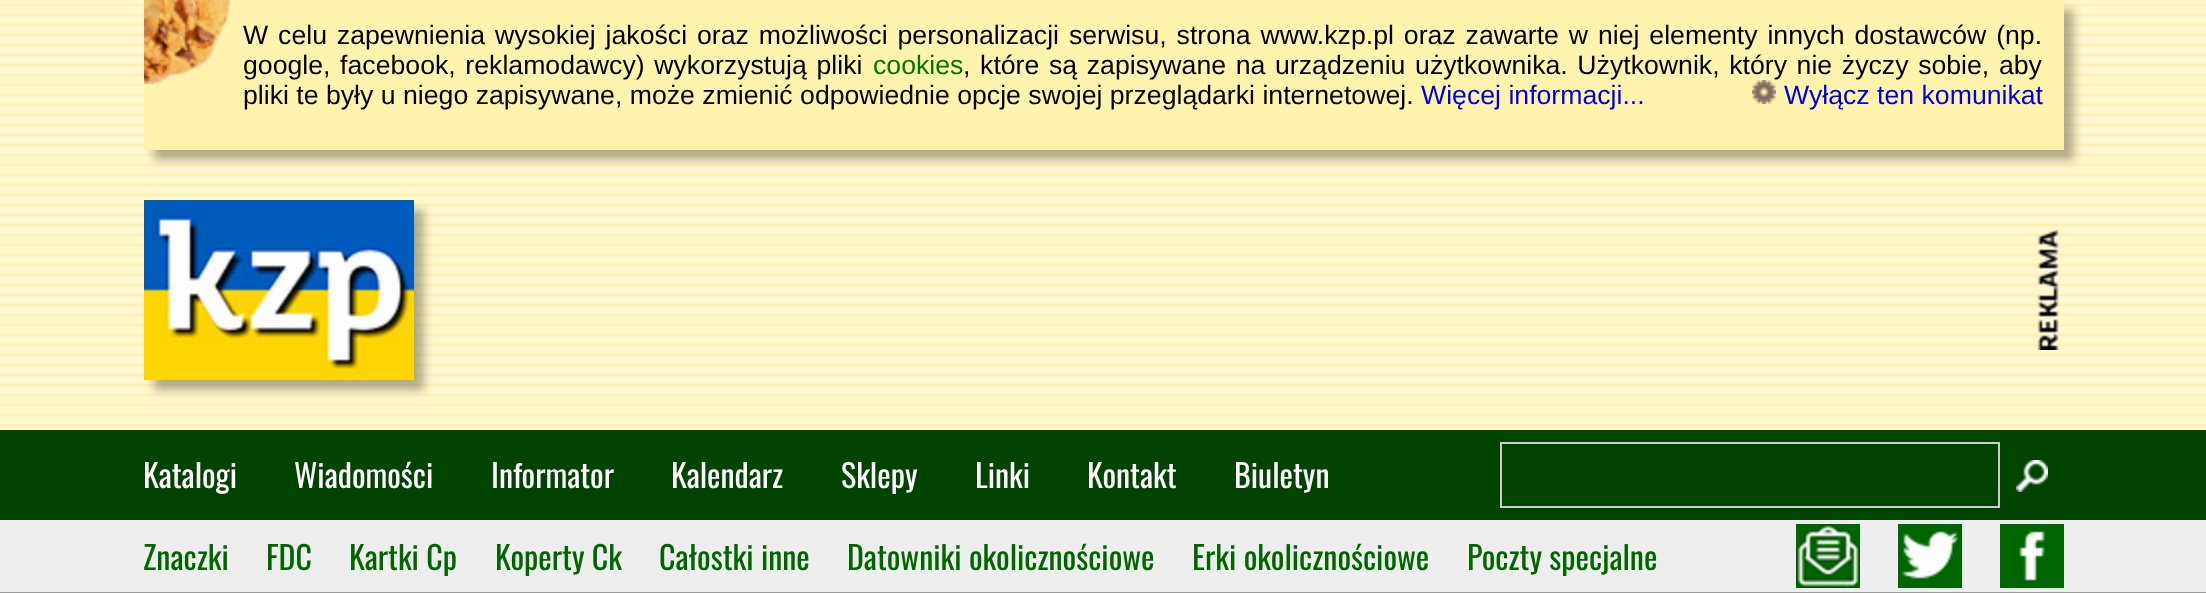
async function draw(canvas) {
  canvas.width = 2206
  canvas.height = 593
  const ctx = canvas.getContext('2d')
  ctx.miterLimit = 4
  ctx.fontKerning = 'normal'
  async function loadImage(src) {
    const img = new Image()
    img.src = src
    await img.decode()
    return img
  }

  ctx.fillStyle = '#fff'
  ctx.fillRect(0, 0, 2206, 593)
  ctx.drawImage(await loadImage('image0.png'), 0, 0, 2206, 430)
  ctx.fillStyle = '#0000004d'
  ctx.filter = 'blur(5px)'
  ctx.beginPath()
  ctx.rect(154, 10, 1920, 150)
  ctx.fill()
  ctx.filter = 'none'
  ctx.fillStyle = '#fff4ae'
  ctx.fillRect(144, 0, 1920, 150)
  ctx.drawImage(await loadImage('image1.png'), 144, 0, 86, 84)
  ctx.wordSpacing = '2.5px'
  ctx.font = '26.67px Liberation Sans'
  ctx.fillStyle = '#000'
  ctx.fillText('W celu zapewnienia wysokiej jakości oraz możliwości personalizacji serwisu, strona www.kzp.pl oraz zawarte w niej elementy innych dostawców (np.', 243, 44)
  ctx.wordSpacing = '2.25px'
  ctx.fillText('google, facebook, reklamodawcy) wykorzystują pliki', 243, 74)
  ctx.wordSpacing = '0px'
  ctx.fillStyle = '#070'
  ctx.fillText('cookies', 873, 74)
  ctx.wordSpacing = '2.25px'
  ctx.fillStyle = '#000'
  ctx.fillText(', które są zapisywane na urządzeniu użytkownika. Użytkownik, który nie życzy sobie, aby', 963, 74)
  ctx.wordSpacing = '0px'
  ctx.fillText('pliki te były u niego zapisywane, może zmienić odpowiednie opcje swojej przeglądarki internetowej.', 243, 104)
  ctx.fillStyle = '#00d'
  ctx.fillText('Więcej informacji...', 1421, 104)
  ctx.drawImage(await loadImage('image2.png'), 1752, 80, 24, 24)
  ctx.fillText('Wyłącz ten komunikat', 1784, 104)
  ctx.fillStyle = '#0000004d'
  ctx.filter = 'blur(5px)'
  ctx.beginPath()
  ctx.rect(154, 210, 270, 180)
  ctx.fill()
  ctx.filter = 'none'
  ctx.drawImage(await loadImage('image3.png'), 144, 200, 270, 180)
  ctx.drawImage(await loadImage('image4.png'), 2037, 230, 25, 120)
  ctx.fillStyle = '#040'
  ctx.fillRect(0, 430, 2206, 90)
  ctx.font = '32px Oswald'
  ctx.fillStyle = '#fff'
  ctx.fillText('Katalogi', 143, 488)
  ctx.fillText('Wiadomości', 294, 488)
  ctx.fillText('Informator', 491, 488)
  ctx.fillText('Kalendarz', 671, 488)
  ctx.fillText('Sklepy', 841, 488)
  ctx.fillText('Linki', 975, 488)
  ctx.fillText('Kontakt', 1087, 488)
  ctx.fillText('Biuletyn', 1234, 488)
  ctx.strokeStyle = '#ccc'
  ctx.lineWidth = 2
  ctx.strokeRect(1501, 443, 498, 64)
  ctx.drawImage(await loadImage('image5.png'), 2016, 460, 32, 32)
  ctx.fillStyle = '#eee'
  ctx.fillRect(0, 520, 2206, 72)
  ctx.fillStyle = '#999'
  ctx.fillRect(0, 592, 2206, 1)
  ctx.fillStyle = '#060'
  ctx.fillText('Znaczki', 143, 570)
  ctx.fillText('FDC', 266, 570)
  ctx.fillText('Kartki Cp', 349, 570)
  ctx.fillText('Koperty Ck', 495, 570)
  ctx.fillText('Całostki inne', 659, 570)
  ctx.fillText('Datowniki okolicznościowe', 847, 570)
  ctx.fillText('Erki okolicznościowe', 1192, 570)
  ctx.fillText('Poczty specjalne', 1467, 570)
  ctx.drawImage(await loadImage('image6.png'), 1796, 524, 64, 64)
  ctx.drawImage(await loadImage('image7.png'), 1898, 524, 64, 64)
  ctx.drawImage(await loadImage('image8.png'), 2000, 524, 64, 64)
}

draw(document.querySelector('canvas'))
